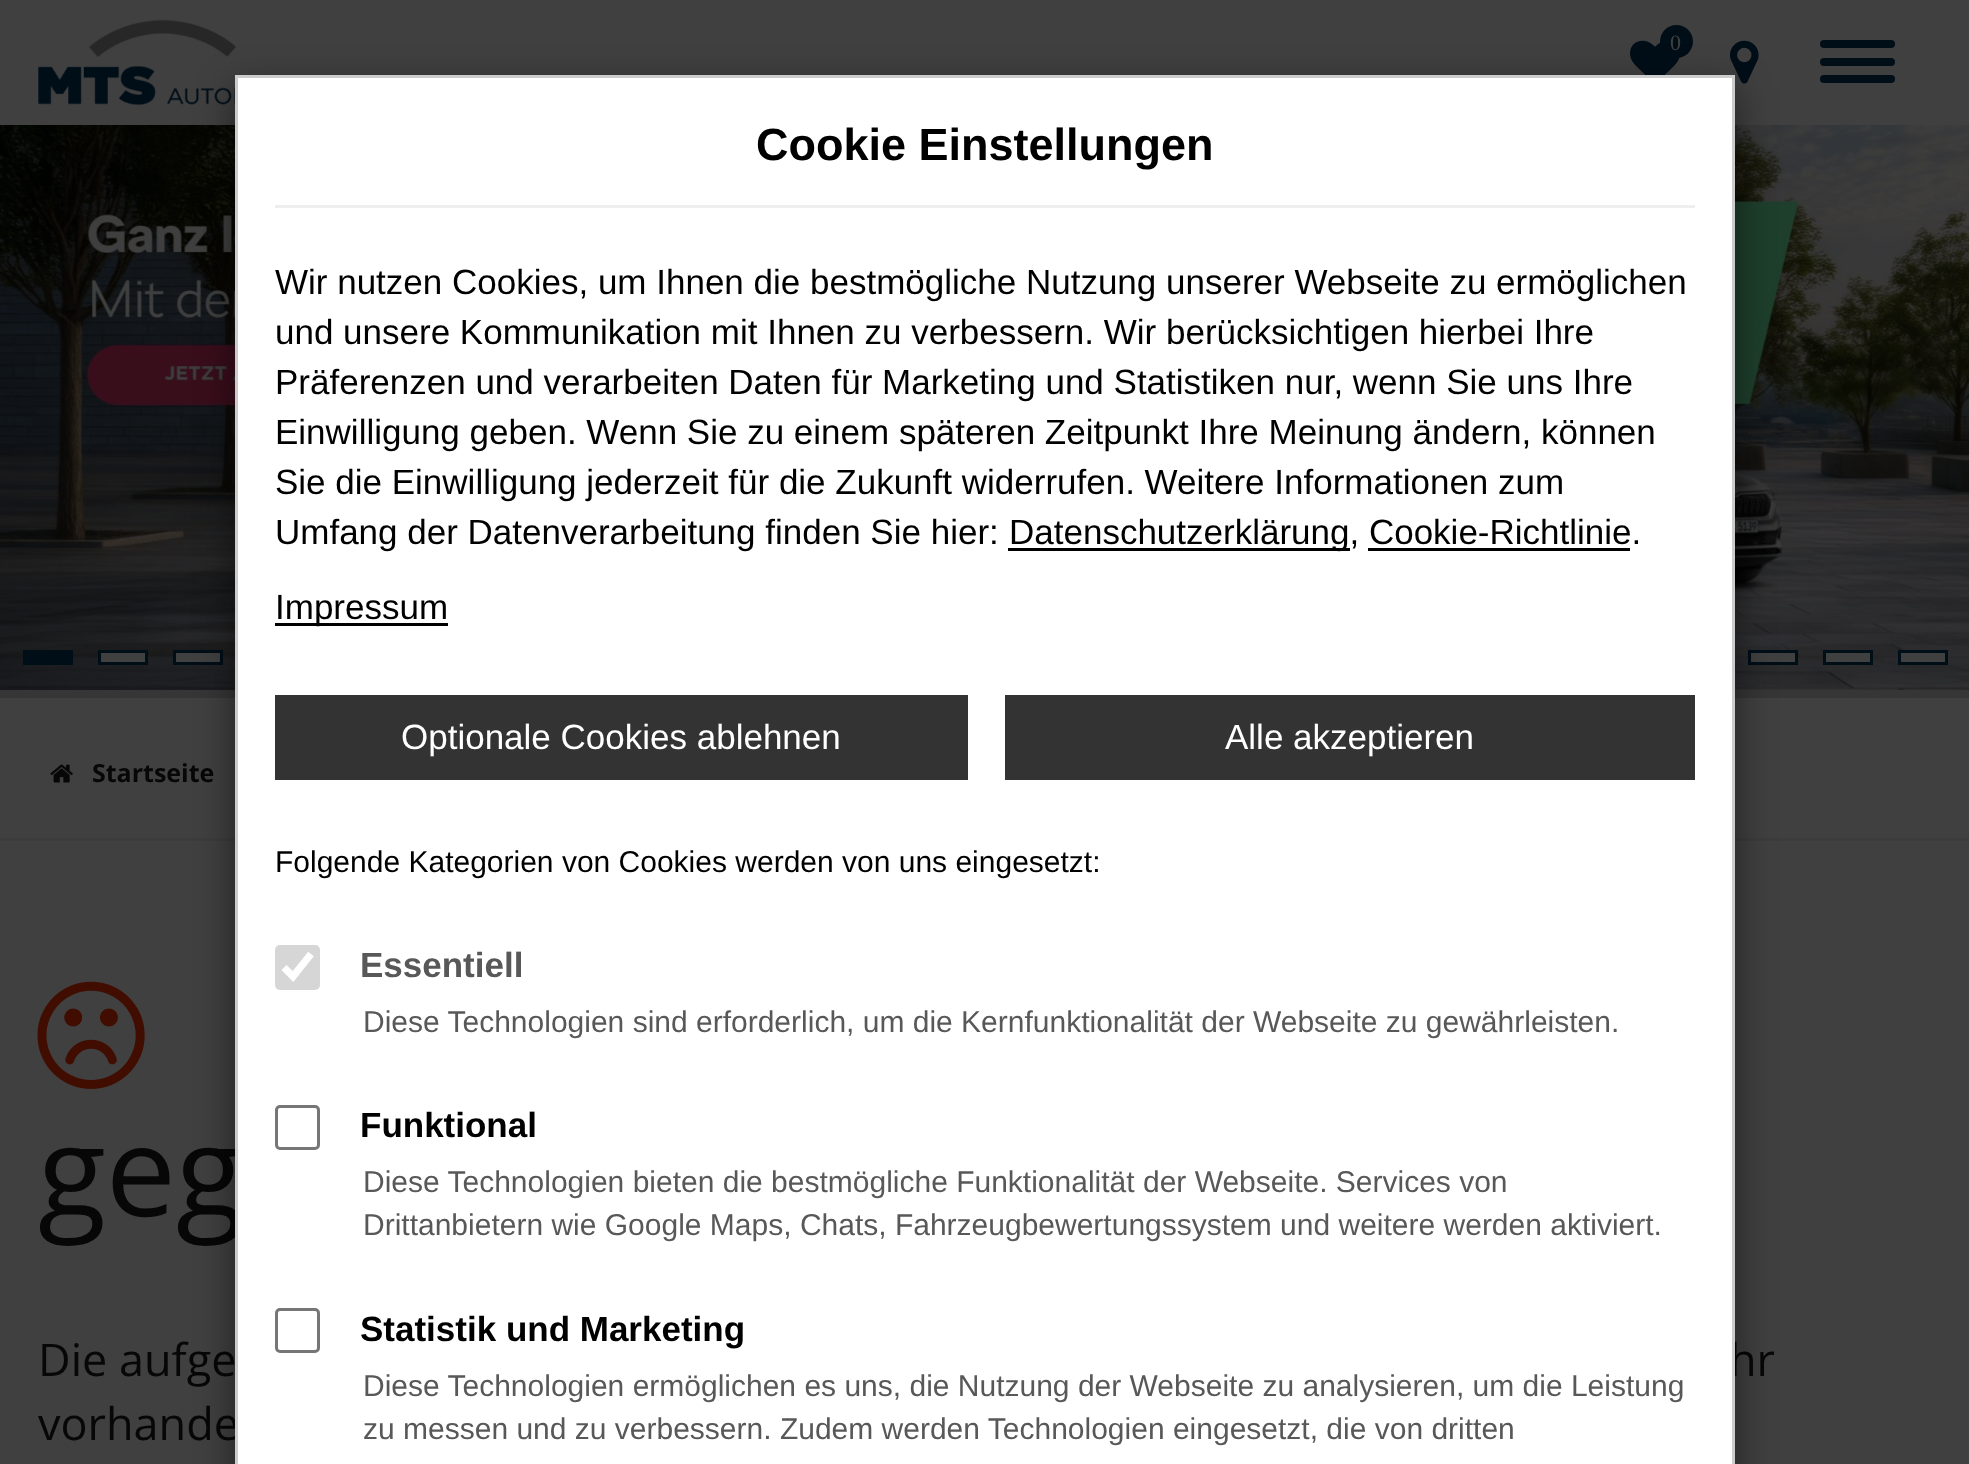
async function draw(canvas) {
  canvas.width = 1969
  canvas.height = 1464
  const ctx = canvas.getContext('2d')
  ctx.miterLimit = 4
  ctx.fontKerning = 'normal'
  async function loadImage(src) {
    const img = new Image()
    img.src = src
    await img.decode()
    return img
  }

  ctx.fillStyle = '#404040'
  ctx.fillRect(0, 0, 1969, 1464)
  ctx.drawImage(await loadImage('image0.png'), 38, 19, 199, 87)
  ctx.drawImage(await loadImage('image1.png'), 1630, 40, 50, 35)
  ctx.fillStyle = '#000e18'
  ctx.beginPath()
  ctx.arc(1676.5, 41.5, 16.5, 0, 2 * Math.PI)
  ctx.fill()
  ctx.font = '22px Liberation Serif'
  ctx.fillStyle = '#404040'
  ctx.fillText('0', 1670, 50)
  ctx.drawImage(await loadImage('image2.png'), 1730, 40, 29, 44)
  ctx.fillStyle = '#000e18'
  ctx.beginPath()
  ctx.roundRect(1820, 58, 75, 8, 4)
  ctx.fill()
  ctx.beginPath()
  ctx.roundRect(1820, 40, 75, 8, 4)
  ctx.fill()
  ctx.beginPath()
  ctx.roundRect(1820, 75, 75, 8, 4)
  ctx.fill()
  ctx.fillStyle = '#363636'
  ctx.fillRect(0, 690, 1969, 8)
  ctx.drawImage(await loadImage('image3.png'), 0, 125, 1969, 565)
  ctx.fillStyle = '#000e18'
  ctx.fillRect(23, 650, 50, 15)
  ctx.fillStyle = '#404040'
  ctx.beginPath()
  ctx.rect(99.5, 651.5, 47, 12)
  ctx.fill()
  ctx.strokeStyle = '#000e18'
  ctx.lineWidth = 3
  ctx.stroke()
  ctx.beginPath()
  ctx.rect(174.5, 651.5, 47, 12)
  ctx.fill()
  ctx.stroke()
  ctx.beginPath()
  ctx.rect(1749.5, 651.5, 47, 12)
  ctx.fill()
  ctx.stroke()
  ctx.beginPath()
  ctx.rect(1824.5, 651.5, 47, 12)
  ctx.fill()
  ctx.stroke()
  ctx.beginPath()
  ctx.rect(1899.5, 651.5, 47, 12)
  ctx.fill()
  ctx.stroke()
  ctx.fillStyle = '#3c3c3c'
  ctx.fillRect(0, 838, 1969, 3)
  ctx.drawImage(await loadImage('image4.png'), 50, 764, 23, 19)
  ctx.font = 'bold 25px Open Sans'
  ctx.fillStyle = '#070707'
  ctx.fillText('Startseite', 92, 782)
  ctx.drawImage(await loadImage('image5.png'), 37, 981, 108, 108)
  ctx.font = '125px Open Sans'
  ctx.fillText('geg', 38, 1216)
  ctx.font = '45px Open Sans'
  ctx.fillText('Die aufge', 38, 1376)
  ctx.fillText('hr', 1729, 1376)
  ctx.fillText('vorhande', 38, 1440)
  ctx.fillStyle = '#00000080'
  ctx.filter = 'blur(19px)'
  ctx.beginPath()
  ctx.rect(235, 88, 1500, 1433)
  ctx.fill()
  ctx.filter = 'none'
  ctx.fillStyle = '#fff'
  ctx.beginPath()
  ctx.rect(236.5, 76.5, 1497, 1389)
  ctx.fill()
  ctx.strokeStyle = '#ccc'
  ctx.stroke()
  ctx.fillStyle = '#eee'
  ctx.fillRect(275, 205, 1420, 3)
  ctx.font = 'bold 45px Liberation Sans'
  ctx.fillStyle = '#000'
  ctx.fillText('Cookie Einstellungen', 756, 160)
  ctx.font = '35px Liberation Sans'
  ctx.fillText('Wir nutzen Cookies, um Ihnen die bestmögliche Nutzung unserer Webseite zu ermöglichen', 275, 294)
  ctx.fillText('und unsere Kommunikation mit Ihnen zu verbessern. Wir berücksichtigen hierbei Ihre', 275, 344)
  ctx.fillText('Präferenzen und verarbeiten Daten für Marketing und Statistiken nur, wenn Sie uns Ihre', 275, 394)
  ctx.fillText('Einwilligung geben. Wenn Sie zu einem späteren Zeitpunkt Ihre Meinung ändern, können', 275, 444)
  ctx.fillText('Sie die Einwilligung jederzeit für die Zukunft widerrufen. Weitere Informationen zum', 275, 494)
  ctx.fillText('Umfang der Datenverarbeitung finden Sie hier:', 275, 544)
  ctx.fillRect(1008, 548, 342, 3)
  ctx.fillText('Datenschutzerklärung, Cookie-Richtlinie.', 1009, 544)
  ctx.fillRect(1368, 548, 262, 3)
  ctx.fillRect(275, 623, 173, 3)
  ctx.fillText('Impressum', 275, 619)
  ctx.fillStyle = '#333'
  ctx.fillRect(275, 695, 693, 85)
  ctx.fillStyle = '#fff'
  ctx.fillText('Optionale Cookies ablehnen', 401, 749)
  ctx.fillStyle = '#333'
  ctx.fillRect(1005, 695, 690, 85)
  ctx.fillStyle = '#fff'
  ctx.fillText('Alle akzeptieren', 1225, 749)
  ctx.font = '30px Liberation Sans'
  ctx.fillStyle = '#000'
  ctx.fillText('Folgende Kategorien von Cookies werden von uns eingesetzt:', 275, 872)
  ctx.fillStyle = '#d6d6d6'
  ctx.beginPath()
  ctx.roundRect(275, 945, 45, 45, 5)
  ctx.fill()
  ctx.beginPath()
  ctx.moveTo(284, 967.5)
  ctx.lineTo(293, 976.5)
  ctx.lineTo(311, 954)
  ctx.strokeStyle = '#fff'
  ctx.lineWidth = 7.2
  ctx.stroke()
  ctx.font = 'bold 35px Liberation Sans'
  ctx.fillStyle = '#585858'
  ctx.fillText('Essentiell', 360, 977)
  ctx.font = '30px Liberation Sans'
  ctx.fillText('Diese Technologien sind erforderlich, um die Kernfunktionalität der Webseite zu gewährleisten.', 363, 1032)
  ctx.beginPath()
  ctx.roundRect(276.5, 1106.5, 42, 42, 3.5)
  ctx.strokeStyle = '#767676'
  ctx.lineWidth = 3
  ctx.stroke()
  ctx.font = 'bold 35px Liberation Sans'
  ctx.fillStyle = '#000'
  ctx.fillText('Funktional', 360, 1137)
  ctx.font = '30px Liberation Sans'
  ctx.fillStyle = '#585858'
  ctx.fillText('Diese Technologien bieten die bestmögliche Funktionalität der Webseite. Services von', 363, 1192)
  ctx.fillText('Drittanbietern wie Google Maps, Chats, Fahrzeugbewertungssystem und weitere werden aktiviert.', 363, 1235)
  ctx.beginPath()
  ctx.roundRect(276.5, 1309.5, 42, 42, 3.5)
  ctx.stroke()
  ctx.font = 'bold 35px Liberation Sans'
  ctx.fillStyle = '#000'
  ctx.fillText('Statistik und Marketing', 360, 1341)
  ctx.font = '30px Liberation Sans'
  ctx.fillStyle = '#585858'
  ctx.fillText('Diese Technologien ermöglichen es uns, die Nutzung der Webseite zu analysieren, um die Leistung', 363, 1396)
  ctx.fillText('zu messen und zu verbessern. Zudem werden Technologien eingesetzt, die von dritten', 363, 1439)
}

draw(document.querySelector('canvas'))
